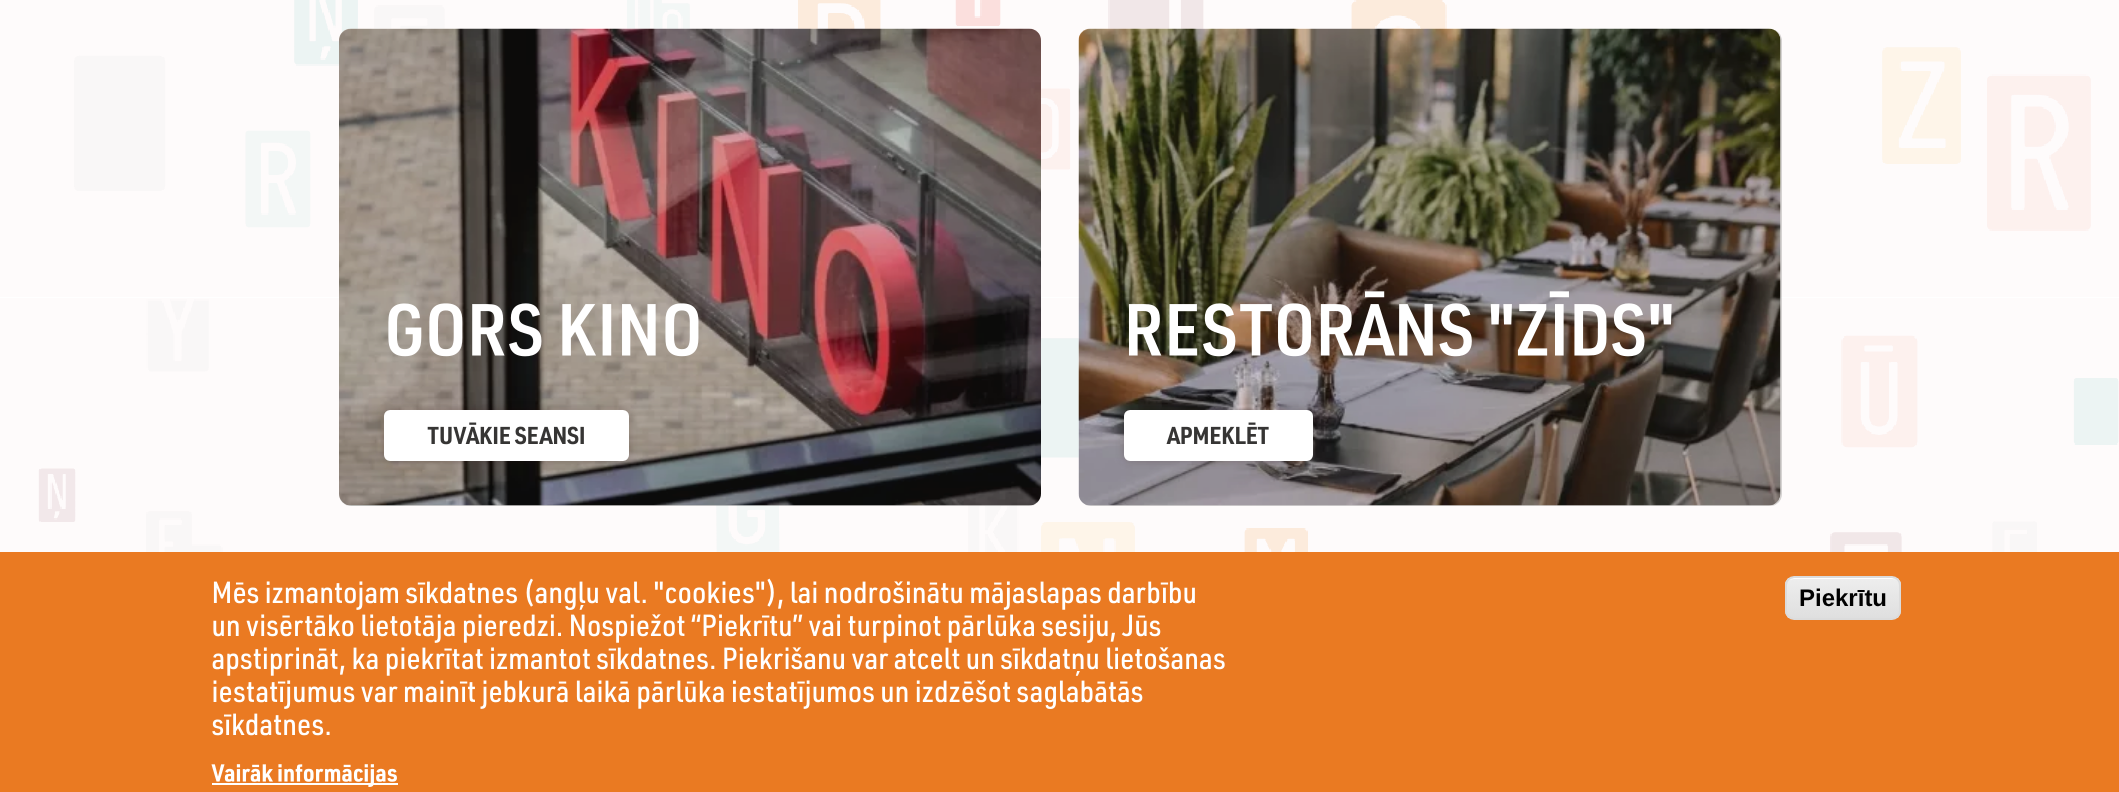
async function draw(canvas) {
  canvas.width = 2119
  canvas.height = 792
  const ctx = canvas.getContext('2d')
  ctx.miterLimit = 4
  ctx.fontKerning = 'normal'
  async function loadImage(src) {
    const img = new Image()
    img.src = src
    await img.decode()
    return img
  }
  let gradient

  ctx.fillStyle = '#fff'
  ctx.fillRect(0, 0, 2119, 792)
  ctx.drawImage(await loadImage('image0.png'), 0, 0, 2119, 552)
  ctx.drawImage(await loadImage('image1.png'), 339, 28, 702, 478)
  ctx.fillStyle = '#36353433'
  ctx.beginPath()
  ctx.roundRect(339, 29, 702, 477, 12)
  ctx.fill()
  ctx.drawImage(await loadImage('image2.png'), 388, 303, 311, 54)
  ctx.fillStyle = '#24060533'
  ctx.filter = 'blur(4.5px)'
  ctx.beginPath()
  ctx.roundRect(384, 410, 245, 51, 6)
  ctx.fill()
  ctx.filter = 'none'
  ctx.fillStyle = '#fff'
  ctx.beginPath()
  ctx.roundRect(387, 413, 239, 45, 3)
  ctx.fill()
  ctx.strokeStyle = '#fff'
  ctx.lineWidth = 6
  ctx.stroke()
  ctx.drawImage(await loadImage('image3.png'), 427, 422, 157, 23)
  ctx.drawImage(await loadImage('image4.png'), 1078, 28, 703, 478)
  ctx.fillStyle = '#36353433'
  ctx.beginPath()
  ctx.roundRect(1079, 29, 703, 477, 12)
  ctx.fill()
  ctx.drawImage(await loadImage('image5.png'), 1128, 291, 544, 66)
  ctx.fillStyle = '#24060533'
  ctx.filter = 'blur(4.5px)'
  ctx.beginPath()
  ctx.roundRect(1124, 410, 189, 51, 6)
  ctx.fill()
  ctx.filter = 'none'
  ctx.fillStyle = '#fff'
  ctx.beginPath()
  ctx.roundRect(1127, 413, 183, 45, 3)
  ctx.fill()
  ctx.stroke()
  ctx.drawImage(await loadImage('image6.png'), 1166, 422, 103, 22)
  ctx.fillStyle = '#ea7a22'
  ctx.fillRect(0, 552, 2119, 240)
  ctx.drawImage(await loadImage('image7.png'), 213, 578, 982, 32)
  ctx.drawImage(await loadImage('image8.png'), 213, 614, 948, 29)
  ctx.drawImage(await loadImage('image9.png'), 212, 647, 1013, 29)
  ctx.drawImage(await loadImage('image10.png'), 213, 680, 930, 29)
  ctx.drawImage(await loadImage('image11.png'), 212, 713, 118, 23)
  ctx.fillStyle = '#fff'
  ctx.fillRect(212, 783, 186, 2)
  ctx.drawImage(await loadImage('image12.png'), 211, 764, 186, 23)
  ctx.save()
  ctx.beginPath()
  ctx.roundRect(1785, 576, 116, 44, 9)
  ctx.clip()
  gradient = ctx.createLinearGradient(1843, 578, 1843, 618)
  gradient.addColorStop(0.05, '#ededed')
  gradient.addColorStop(1, '#dfdfdf')
  ctx.fillStyle = gradient
  ctx.fillRect(1785, 578, 116, 40)
  ctx.restore()
  ctx.beginPath()
  ctx.moveTo(1794, 579)
  ctx.lineTo(1892, 579)
  ctx.bezierCurveTo(1896, 579, 1899, 582, 1899, 586)
  ctx.bezierCurveTo(1899, 582, 1895, 578, 1891, 578)
  ctx.lineTo(1795, 578)
  ctx.bezierCurveTo(1793, 578, 1791, 579, 1789, 580)
  ctx.bezierCurveTo(1791, 580, 1792, 579, 1794, 579)
  ctx.closePath()
  ctx.fill()
  ctx.beginPath()
  ctx.roundRect(1786, 577, 114, 42, 8)
  ctx.strokeStyle = '#dcdcdc'
  ctx.lineWidth = 2
  ctx.stroke()
  ctx.font = 'bold 24px Liberation Sans'
  ctx.fillStyle = '#000'
  ctx.fillText('Piekrītu', 1799, 606)
}

draw(document.querySelector('canvas'))
